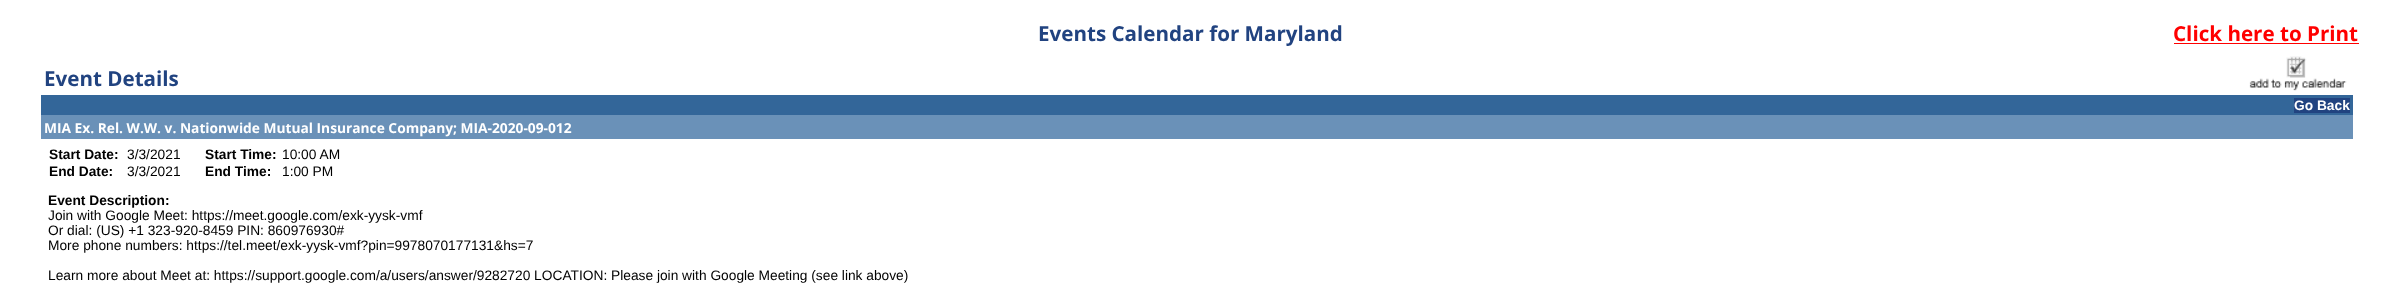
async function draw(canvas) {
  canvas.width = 2381
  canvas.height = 302
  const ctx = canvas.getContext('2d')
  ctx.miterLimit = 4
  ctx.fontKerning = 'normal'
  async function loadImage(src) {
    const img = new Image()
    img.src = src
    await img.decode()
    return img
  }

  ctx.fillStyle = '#fff'
  ctx.fillRect(0, 0, 2381, 302)
  ctx.font = 'bold 20.6px Open Sans'
  ctx.fillStyle = '#214380'
  ctx.fillText('Events Calendar for Maryland', 1038, 41)
  ctx.fillStyle = '#f00'
  ctx.fillText('Click here to Print', 2173, 41)
  ctx.fillRect(2174, 43, 185, 1)
  ctx.fillStyle = '#214380'
  ctx.fillText('Event Details', 44, 86)
  ctx.drawImage(await loadImage('image0.png'), 2249, 56, 98, 35)
  ctx.fillStyle = '#369'
  ctx.fillRect(41, 95, 2312, 20)
  ctx.fillStyle = '#214380'
  ctx.fillRect(2294, 98, 56, 15)
  ctx.font = 'bold 13.75px Liberation Sans'
  ctx.fillStyle = '#fff'
  ctx.fillText('Go Back', 2294, 110)
  ctx.fillStyle = '#6a91b8'
  ctx.fillRect(41, 115, 2312, 24)
  ctx.font = 'bold 13.75px Open Sans'
  ctx.fillStyle = '#fff'
  ctx.fillText('MIA Ex. Rel. W.W. v. Nationwide Mutual Insurance Company; MIA-2020-09-012', 44, 133)
  ctx.font = 'bold 13.75px Liberation Sans'
  ctx.fillStyle = '#000'
  ctx.fillText('Start Date:', 49, 159)
  ctx.font = '13.75px Liberation Sans'
  ctx.fillText('3/3/2021', 127, 159)
  ctx.font = 'bold 13.75px Liberation Sans'
  ctx.fillText('Start Time:', 205, 159)
  ctx.font = '13.75px Liberation Sans'
  ctx.fillText('10:00 AM', 282, 159)
  ctx.font = 'bold 13.75px Liberation Sans'
  ctx.fillText('End Date:', 49, 176)
  ctx.font = '13.75px Liberation Sans'
  ctx.fillText('3/3/2021', 127, 176)
  ctx.font = 'bold 13.75px Liberation Sans'
  ctx.fillText('End Time:', 205, 176)
  ctx.font = '13.75px Liberation Sans'
  ctx.fillText('1:00 PM', 282, 176)
  ctx.font = 'bold 13.75px Liberation Sans'
  ctx.fillText('Event Description:', 48, 205)
  ctx.font = '13.75px Liberation Sans'
  ctx.fillText('Join with Google Meet: https://meet.google.com/exk-yysk-vmf', 48, 220)
  ctx.fillText('Or dial: (US) +1 323-920-8459 PIN: 860976930#', 48, 235)
  ctx.fillText('More phone numbers: https://tel.meet/exk-yysk-vmf?pin=9978070177131&hs=7', 48, 250)
  ctx.fillText('Learn more about Meet at: https://support.google.com/a/users/answer/9282720 LOCATION: Please join with Google Meeting (see link above)', 48, 280)
}

draw(document.querySelector('canvas'))
